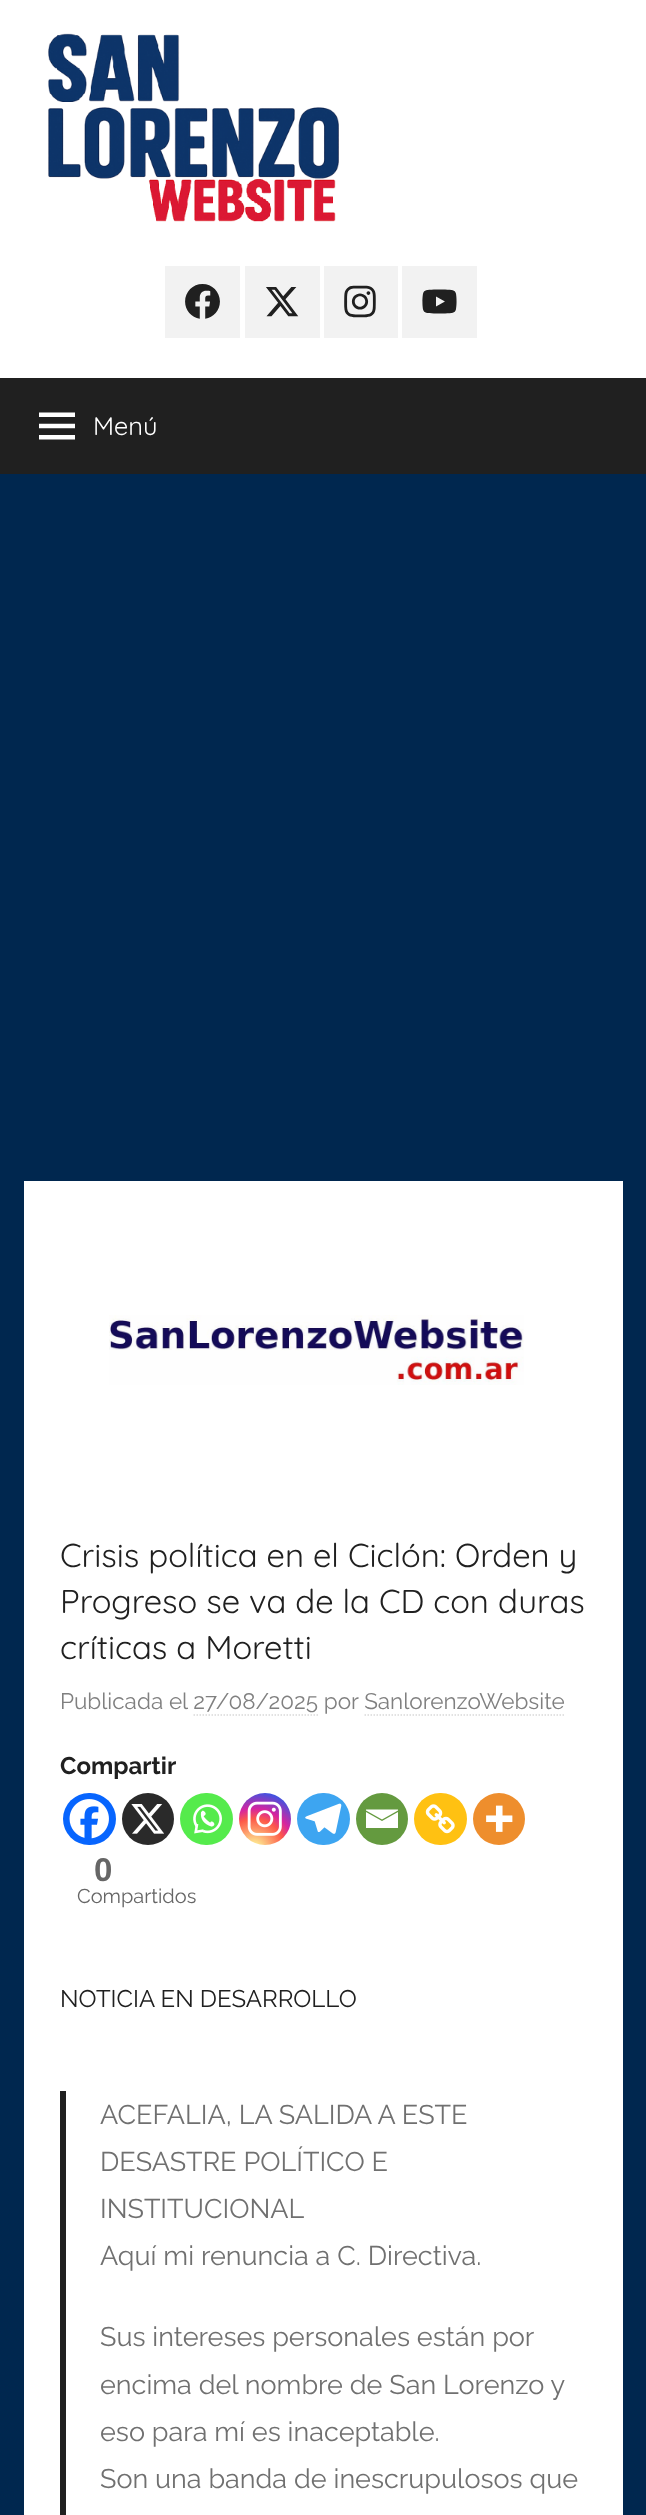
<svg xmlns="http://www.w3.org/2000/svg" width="646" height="2515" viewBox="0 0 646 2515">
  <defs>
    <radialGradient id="g1" gradientUnits="userSpaceOnUse" cx="254" cy="1849" r="67"><stop offset="0" stop-color="#fdf497"/><stop offset="0.05" stop-color="#fdf497"/><stop offset="0.45" stop-color="#fd5949"/><stop offset="0.6" stop-color="#d6249f"/><stop offset="0.9" stop-color="#285aeb"/></radialGradient>
  </defs>
  <rect width="100%" height="100%" fill="#00274f"/>
  <path d="M0 0h646v378H0z" fill="#fff"/>
  <image x="48" y="33" width="291" height="189" href="img/1.png"/>
  <path d="M165 266h75v72H165z" fill="#f2f2f2"/>
  <image x="185" y="284" width="35" height="35" href="img/2.png"/>
  <path d="M245 266h75v72H245z" fill="#f2f2f2"/>
  <image x="266" y="287" width="33" height="30" href="img/3.png"/>
  <path d="M324 266h74v72H324z" fill="#f2f2f2"/>
  <image x="344" y="285" width="32" height="33" href="img/4.png"/>
  <path d="M402 266h75v72H402z" fill="#f2f2f2"/>
  <image x="422" y="289" width="35" height="25" href="img/5.png"/>
  <path d="M0 378h646v96H0z" fill="#202020"/>
  <image x="39" y="412" width="36" height="28" href="img/6.png"/>
  <path d="M24 1181h599v1334H24z" fill="#fff"/>
  <image x="109" y="1315" width="415" height="70" href="img/7.png"/>
  <path d="M193.5 1715H318" fill="none" stroke="#d9d9d9" stroke-width="1.5" stroke-dasharray="1.5 1.5"/>
  <path d="M364.5 1715H565.5" fill="none" stroke="#d9d9d9" stroke-width="1.5" stroke-dasharray="1.5 1.5"/>
  <rect x="63" y="1793" width="53" height="52" rx="26" fill="#0765fe"/>
  <image x="69" y="1799" width="40" height="40" href="img/8.png"/>
  <circle cx="148" cy="1819" r="26" fill="#2a2a2a"/>
  <image x="131" y="1804" width="33" height="30" href="img/9.png"/>
  <rect x="180" y="1793" width="53" height="52" rx="26" fill="#55eb4c"/>
  <image x="193" y="1804" width="29" height="30" href="img/10.png"/>
  <circle cx="265" cy="1819" r="26" fill="url(#g1)"/>
  <image x="247" y="1801" width="35" height="35" href="img/11.png"/>
  <rect x="297" y="1793" width="53" height="52" rx="26" fill="#3da5f1"/>
  <image x="305" y="1803" width="37" height="31" href="img/12.png"/>
  <circle cx="382" cy="1819" r="26" fill="#649a3f"/>
  <path d="M364.5 1809.5H398V1810.5L382 1819.5L366 1810.5V1809.5M366 1812L382 1821L398 1812V1828H366V1812" fill="#fff"/>
  <rect x="414" y="1793" width="53" height="52" rx="26" fill="#ffc112"/>
  <image x="425" y="1804" width="30" height="30" href="img/13.png"/>
  <circle cx="499" cy="1819" r="26" fill="#ee8e2d"/>
  <image x="486" y="1805" width="27" height="27" href="img/14.png"/>
  <path d="M60 2091h6v424H60z" fill="#202020"/>
  <text x="93" y="435" font-family="Quicksand" font-size="25.5" font-weight="300" fill="#fff">Menú</text>
  <g font-family="Quicksand" font-size="33" font-weight="300" fill="#202020">
    <text x="60" y="1567">Crisis política en el Ciclón: Orden y</text>
    <text x="60" y="1613">Progreso se va de la CD con duras</text>
    <text x="60" y="1659">críticas a Moretti</text>
  </g>
  <text x="60" y="1709" font-family="Raleway" font-size="22.5" font-weight="100" fill="#808080">Publicada el 27/08/2025 por SanlorenzoWebsite</text>
  <text x="60" y="1774" font-family="'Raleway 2'" font-size="24" font-weight="100" fill="#202020">Compartir</text>
  <text x="94" y="1881" font-family="Liberation Sans" font-size="33" font-weight="bold" fill="#666">0</text>
  <text x="77" y="1903" font-family="Raleway" font-size="20" font-weight="100" fill="#666">Compartidos</text>
  <text x="60" y="2007" font-family="Raleway" font-size="24" font-weight="100" fill="#202020">NOTICIA EN DESARROLLO</text>
  <g font-family="Raleway" font-size="27" font-weight="100" fill="#707070">
    <text x="100" y="2124">ACEFALIA, LA SALIDA A ESTE</text>
    <text x="100" y="2171">DESASTRE POLÍTICO E</text>
    <text x="100" y="2218">INSTITUCIONAL</text>
    <text x="100" y="2265">Aquí mi renuncia a C. Directiva.</text>
    <text x="100" y="2346">Sus intereses personales están por</text>
    <text x="100" y="2394">encima del nombre de San Lorenzo y</text>
    <text x="100" y="2441">eso para mí es inaceptable.</text>
    <text x="100" y="2488">Son una banda de inescrupulosos que</text>
  </g>
</svg>
